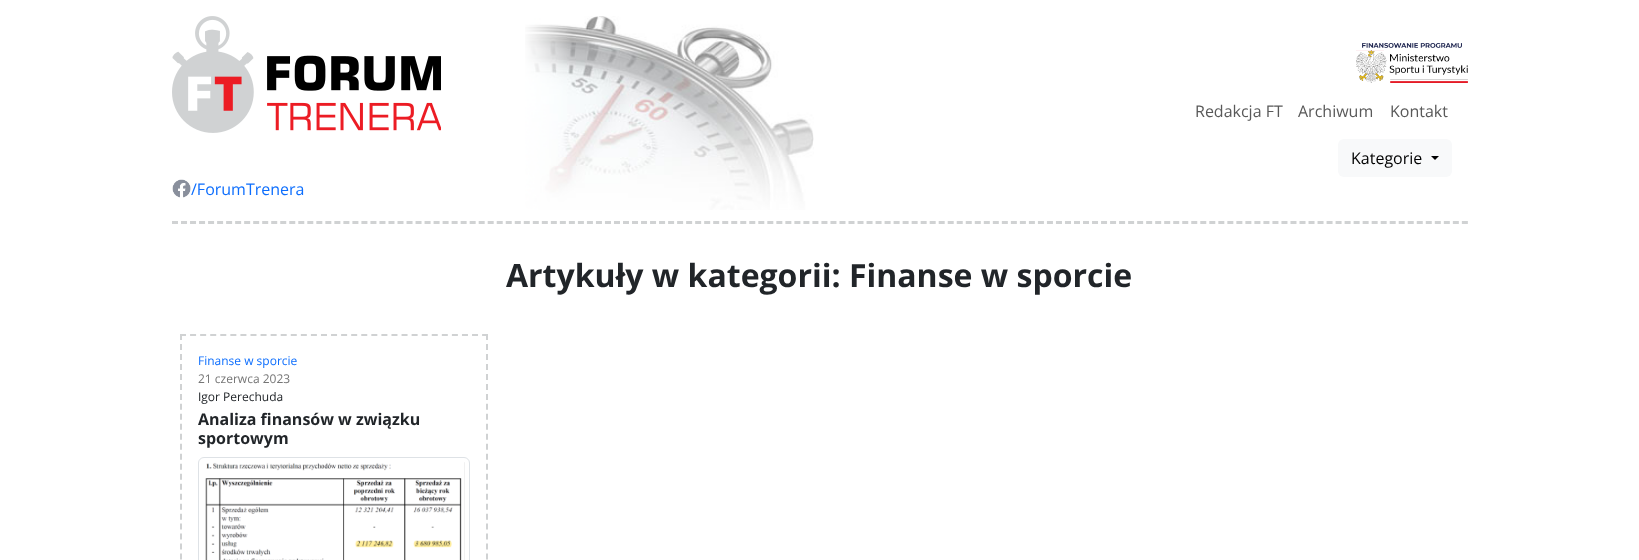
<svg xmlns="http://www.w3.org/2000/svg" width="1639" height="560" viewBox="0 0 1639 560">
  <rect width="100%" height="100%" fill="#fff"/>
  <image x="525" y="16" width="289" height="194" href="img/1.png"/>
  <path d="M172 222.5H1468" fill="none" stroke="#d0d2d3" stroke-width="3" stroke-dasharray="6 3.02"/>
  <image x="1356" y="43" width="112" height="40" href="img/2.png"/>
  <rect x="1338" y="139" width="114" height="38" rx="6" fill="#f8f9fa"/>
  <path d="M1431 156H1439L1435 160Z" fill="#000"/>
  <image x="172" y="16" width="269" height="117" href="img/3.png"/>
  <image x="172" y="179" width="19" height="19" href="img/4.png"/>
  <path d="M180 335H488" fill="none" stroke="#d0d2d3" stroke-width="2" stroke-dasharray="6 4.07"/>
  <path d="M487 334V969" fill="none" stroke="#d0d2d3" stroke-width="2" stroke-dasharray="6 3.98"/>
  <path d="M181 334V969" fill="none" stroke="#d0d2d3" stroke-width="2" stroke-dasharray="6 3.98"/>
  <rect x="198.5" y="457.5" width="271" height="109" rx="5.5" fill="none" stroke="#dee2e6"/>
  <image x="205" y="462" width="260" height="98" href="img/5.png"/>
  <g font-family="Open Sans" font-size="16" fill="#595959">
    <text x="1195" y="117">Redakcja FT</text>
    <text x="1298" y="117">Archiwum</text>
    <text x="1390" y="117">Kontakt</text>
  </g>
  <text x="1351" y="164" font-family="Open Sans" font-size="16" fill="#000">Kategorie</text>
  <text x="191" y="195" font-family="Open Sans" font-size="16" fill="#0d6efd">/ForumTrenera</text>
  <text x="506" y="287" font-family="Open Sans" font-size="32" font-weight="bold" fill="#212529">Artykuły w kategorii: Finanse w sporcie</text>
  <text x="198" y="365" font-family="Open Sans" font-size="12" fill="#0d6efd">Finanse w sporcie</text>
  <text x="198" y="383" font-family="Open Sans" font-size="12" fill="#757575">21 czerwca 2023</text>
  <text x="198" y="401" font-family="Open Sans" font-size="12" fill="#212529">Igor Perechuda</text>
  <g font-family="Open Sans" font-size="16" font-weight="bold" fill="#212529">
    <text x="198" y="425">Analiza finansów w związku</text>
    <text x="198" y="444">sportowym</text>
  </g>
</svg>
